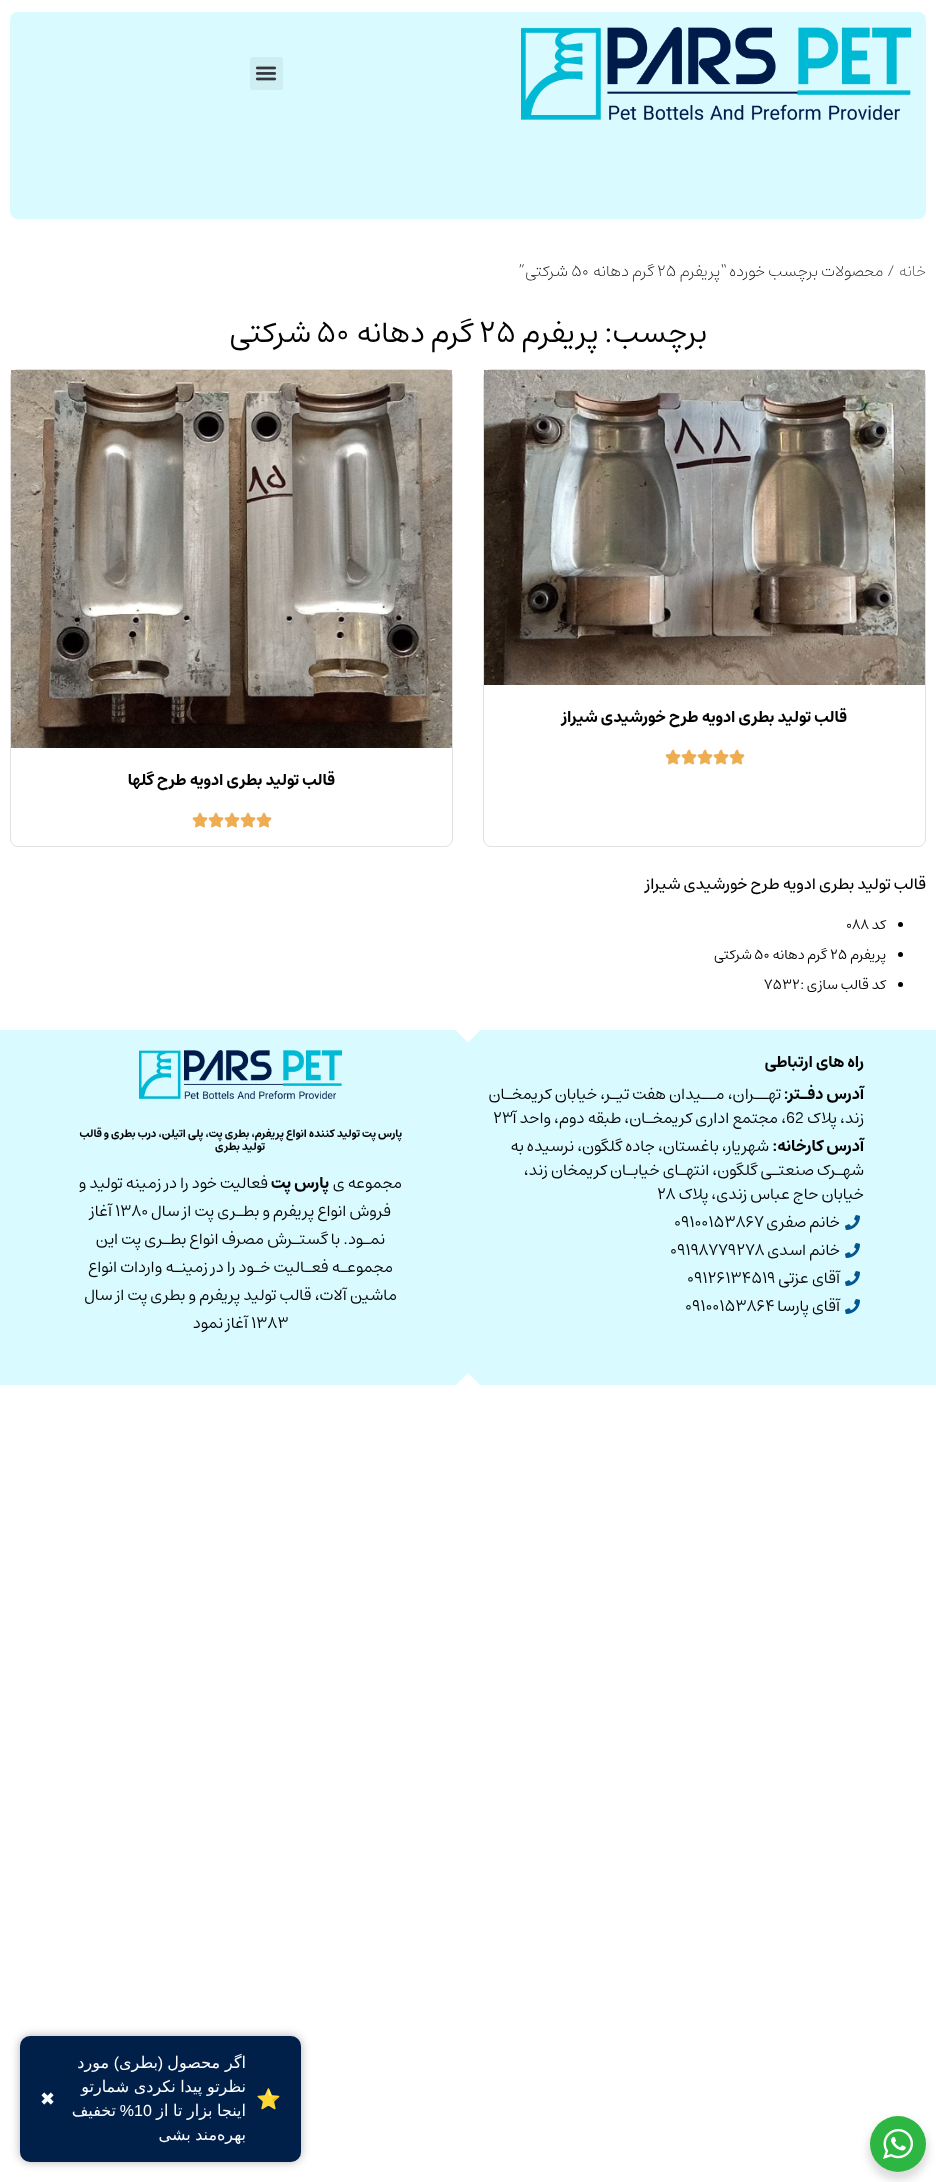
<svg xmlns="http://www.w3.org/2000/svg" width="936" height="2182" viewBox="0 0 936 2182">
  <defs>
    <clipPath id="clip1"><path d="M0 1373h936v13H0z"/></clipPath>
  </defs>
  <rect width="100%" height="100%" fill="#fff"/>
  <rect x="10" y="12" width="916" height="207" rx="8" fill="#d9faff"/>
  <image x="521" y="27" width="390" height="93" href="img/1.png"/>
  <rect x="250" y="57" width="33" height="33" rx="3" fill="#ceeef2"/>
  <image x="255" y="66" width="22" height="15" href="img/2.png"/>
  <rect x="483.5" y="369.5" width="442" height="477" rx="7.5" fill="none" stroke="#e1e1e1"/>
  <image x="484" y="370" width="441" height="315" href="img/3.png"/>
  <image x="729" y="749" width="16" height="16" href="img/4.png"/>
  <image x="729" y="749" width="16" height="16" href="img/5.png"/>
  <image x="713" y="749" width="16" height="16" href="img/4.png"/>
  <image x="713" y="749" width="16" height="16" href="img/5.png"/>
  <image x="697" y="749" width="16" height="16" href="img/4.png"/>
  <image x="697" y="749" width="16" height="16" href="img/5.png"/>
  <image x="681" y="749" width="16" height="16" href="img/4.png"/>
  <image x="681" y="749" width="16" height="16" href="img/5.png"/>
  <image x="665" y="749" width="16" height="16" href="img/4.png"/>
  <image x="665" y="749" width="16" height="16" href="img/5.png"/>
  <rect x="10.5" y="369.5" width="442" height="477" rx="7.5" fill="none" stroke="#e1e1e1"/>
  <image x="11" y="370" width="441" height="378" href="img/6.png"/>
  <image x="256" y="812" width="16" height="16" href="img/4.png"/>
  <image x="256" y="812" width="16" height="16" href="img/5.png"/>
  <image x="240" y="812" width="16" height="16" href="img/4.png"/>
  <image x="240" y="812" width="16" height="16" href="img/5.png"/>
  <image x="224" y="812" width="16" height="16" href="img/4.png"/>
  <image x="224" y="812" width="16" height="16" href="img/5.png"/>
  <image x="208" y="812" width="16" height="16" href="img/4.png"/>
  <image x="208" y="812" width="16" height="16" href="img/5.png"/>
  <image x="192" y="812" width="16" height="16" href="img/4.png"/>
  <image x="192" y="812" width="16" height="16" href="img/5.png"/>
  <circle cx="900.5" cy="924.5" r="2.5" fill="#000"/>
  <circle cx="900.5" cy="954.5" r="2.5" fill="#000"/>
  <circle cx="900.5" cy="984.5" r="2.5" fill="#000"/>
  <path d="M0 1030h936v355H0z" fill="#d9faff"/>
  <path d="M468 1042.5L454.5 1029H481.5Z" fill="#fff"/>
  <image x="845" y="1215" width="15" height="15" href="img/7.png"/>
  <image x="845" y="1243" width="15" height="15" href="img/7.png"/>
  <image x="845" y="1271" width="15" height="15" href="img/7.png"/>
  <image x="845" y="1299" width="15" height="15" href="img/7.png"/>
  <image x="139" y="1050" width="203" height="49" href="img/8.png"/>
  <g clip-path="url(#clip1)">
    <path d="M468 1373L481.5 1386.5H454.5Z" fill="#fff"/>
  </g>
  <rect x="868" y="2120" width="60" height="60" rx="30" fill="#00000024" filter="blur(4px)"/>
  <circle cx="898" cy="2144" r="28" fill="#2db742"/>
  <image x="883" y="2129" width="30" height="30" href="img/9.png"/>
  <rect x="20" y="2036" width="281" height="126" rx="10" fill="#0000004d" filter="blur(5px)"/>
  <rect x="20" y="2036" width="281" height="126" rx="10" fill="#00204a"/>
  <text x="926" y="276" font-family="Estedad" font-size="16" font-weight="200" direction="rtl" fill="#474747">خانه</text>
  <g font-family="Estedad" font-size="16" font-weight="200" direction="rtl" fill="#000">
    <text x="895" y="276">/ محصولات برچسب خورده</text>
    <text x="727" y="276">“پریفرم</text>
  </g>
  <text x="657" y="276" font-family="Estedad" font-size="16" font-weight="200" fill="#000">۲۵</text>
  <text x="654" y="276" font-family="Estedad" font-size="16" font-weight="200" direction="rtl" fill="#000">گرم دهانه</text>
  <text x="571" y="276" font-family="Estedad" font-size="16" font-weight="200" fill="#000">۵۰</text>
  <text x="568" y="276" font-family="Estedad" font-size="16" font-weight="200" direction="rtl" fill="#000">شرکتی”</text>
  <text x="707" y="342" font-family="Estedad" font-size="30" direction="rtl" fill="#000">برچسب: پریفرم</text>
  <text x="479" y="342" font-family="Estedad" font-size="30" fill="#000">۲۵</text>
  <text x="473" y="342" font-family="Estedad" font-size="30" direction="rtl" fill="#000">گرم دهانه</text>
  <text x="316" y="342" font-family="Estedad" font-size="30" fill="#000">۵۰</text>
  <text x="311" y="342" font-family="Estedad" font-size="30" direction="rtl" fill="#000">شرکتی</text>
  <g font-family="Estedad" font-size="16" font-weight="bold" direction="rtl" fill="#000">
    <text x="847" y="722">قالب تولید بطری ادویه طرح خورشیدی شیراز</text>
    <text x="335" y="785">قالب تولید بطری ادویه طرح گلها</text>
  </g>
  <text x="926" y="889" font-family="Estedad" font-size="16" font-weight="500" direction="rtl" fill="#000">قالب تولید بطری ادویه طرح خورشیدی شیراز</text>
  <text x="886" y="929" font-family="Estedad" font-size="14" direction="rtl" fill="#000">کد</text>
  <text x="846" y="929" font-family="Estedad" font-size="14" fill="#000">۰۸۸</text>
  <text x="886" y="959" font-family="Estedad" font-size="14" direction="rtl" fill="#000">پریفرم</text>
  <text x="830" y="959" font-family="Estedad" font-size="14" fill="#000">۲۵</text>
  <text x="827" y="959" font-family="Estedad" font-size="14" direction="rtl" fill="#000">گرم دهانه</text>
  <text x="754" y="959" font-family="Estedad" font-size="14" fill="#000">۵۰</text>
  <g font-family="Estedad" font-size="14" direction="rtl" fill="#000">
    <text x="752" y="959">شرکتی</text>
    <text x="886" y="989">کد قالب سازی :</text>
  </g>
  <text x="764" y="989" font-family="Estedad" font-size="14" fill="#000">۷۵۳۲</text>
  <g font-family="Estedad" font-size="16" font-weight="bold" direction="rtl" fill="#000">
    <text x="864" y="1067">راه های ارتباطی</text>
    <text x="864" y="1099">آدرس دفـتر:</text>
  </g>
  <g font-family="Estedad" font-size="16" direction="rtl" fill="#000">
    <text x="781" y="1099">تهــران، مــیدان هفت تیـر، خیابان کریمخـان</text>
    <text x="864" y="1123">زند، پلاک</text>
  </g>
  <text x="786" y="1123" font-family="Estedad" font-size="16" fill="#000">62</text>
  <text x="786" y="1123" font-family="Estedad" font-size="16" direction="rtl" fill="#000">، مجتمع اداری کریمخـان، طبقه دوم، واحد آ</text>
  <text x="493" y="1123" font-family="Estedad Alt" font-size="16" fill="#000">23</text>
  <text x="864" y="1151" font-family="Estedad" font-size="16" font-weight="bold" direction="rtl" fill="#000">آدرس کارخانه:</text>
  <g font-family="Estedad" font-size="16" direction="rtl" fill="#000">
    <text x="769" y="1151">شهریار، باغستان، جاده گلگون، نرسیده به</text>
    <text x="864" y="1175">شهـرک صنعتـی گلگون، انتهـای خیابـان کریمخان زند،</text>
    <text x="864" y="1199">خیابان حاج عباس زندی، پلاک</text>
  </g>
  <text x="657" y="1199" font-family="Estedad Alt" font-size="16" fill="#000">28</text>
  <text x="840" y="1227" font-family="Estedad" font-size="16" direction="rtl" fill="#000">خانم صفری</text>
  <text x="674" y="1227" font-family="Estedad Alt" font-size="16" fill="#000">09100153867</text>
  <text x="840" y="1255" font-family="Estedad" font-size="16" direction="rtl" fill="#000">خانم اسدی</text>
  <text x="670" y="1255" font-family="Estedad Alt" font-size="16" fill="#000">09198779278</text>
  <text x="840" y="1283" font-family="Estedad" font-size="16" direction="rtl" fill="#000">آقای عزتی</text>
  <text x="687" y="1283" font-family="Estedad Alt" font-size="16" fill="#000">09126134519</text>
  <text x="840" y="1311" font-family="Estedad" font-size="16" direction="rtl" fill="#000">آقای پارسا</text>
  <text x="685" y="1311" font-family="Estedad Alt" font-size="16" fill="#000">09100153864</text>
  <g font-family="Estedad" font-size="11" font-weight="bold" direction="rtl" fill="#000">
    <text x="402" y="1137">پارس پت تولید کننده انواع پریفرم، بطری پت، پلی اتیلن، درب بطری و</text>
    <text x="102" y="1137">قالب</text>
    <text x="265" y="1150">تولید بطری</text>
  </g>
  <text x="402" y="1188" font-family="Estedad" font-size="16" direction="rtl" fill="#000">مجموعه ی</text>
  <text x="329" y="1188" font-family="Estedad" font-size="16" font-weight="bold" direction="rtl" fill="#000">پارس پت</text>
  <g font-family="Estedad" font-size="16" direction="rtl" fill="#000">
    <text x="268" y="1188">فعالیت خود را در زمینه تولید و</text>
    <text x="391" y="1216">فروش انواع پریفرم و بطـری پت از سال</text>
  </g>
  <text x="115" y="1216" font-family="Estedad" font-size="16" fill="#000">۱۳۸۰</text>
  <g font-family="Estedad" font-size="16" direction="rtl" fill="#000">
    <text x="112" y="1216">آغاز</text>
    <text x="385" y="1244">نمـود. با گستـرش مصرف انواع بطـری پت این</text>
    <text x="393" y="1272">مجموعـه فعـالیت خـود را در زمینـه واردات انواع</text>
    <text x="397" y="1300">ماشین آلات، قالب تولید پریفرم و بطری پت از سال</text>
  </g>
  <text x="251" y="1328" font-family="Estedad" font-size="16" fill="#000">۱۳۸۳</text>
  <text x="248" y="1328" font-family="Estedad" font-size="16" direction="rtl" fill="#000">آغاز نمود</text>
  <text x="256" y="2106" font-family="Noto Color Emoji" font-size="20" fill="#fff">⭐</text>
  <text x="246" y="2068" font-family="DejaVu Sans" font-size="16" direction="rtl" fill="#fff">اگر محصول</text>
  <text x="163" y="2068" font-family="Liberation Sans" font-size="16" direction="rtl" fill="#fff">(</text>
  <text x="158" y="2068" font-family="DejaVu Sans" font-size="16" direction="rtl" fill="#fff">بطری</text>
  <text x="119" y="2068" font-family="Liberation Sans" font-size="16" direction="rtl" fill="#fff">)</text>
  <g font-family="DejaVu Sans" font-size="16" direction="rtl" fill="#fff">
    <text x="109" y="2068">مورد</text>
    <text x="246" y="2092" word-spacing="-0.5">نظرتو پیدا نکردی شمارتو</text>
    <text x="246" y="2116" word-spacing="-0.5">اینجا بزار تا از</text>
  </g>
  <text x="134" y="2116" font-family="Liberation Sans" font-size="16" fill="#fff">10</text>
  <text x="134" y="2116" font-family="Liberation Sans" font-size="16" direction="rtl" fill="#fff">%</text>
  <g font-family="DejaVu Sans" font-size="16" direction="rtl" fill="#fff">
    <text x="116" y="2116">تخفیف</text>
    <text x="246" y="2140">بهره</text>
    <text x="217" y="2140" word-spacing="-0.5">مند بشی</text>
  </g>
  <text x="40" y="2105" font-family="DejaVu Sans" font-size="18" fill="#fff">✖</text>
</svg>
